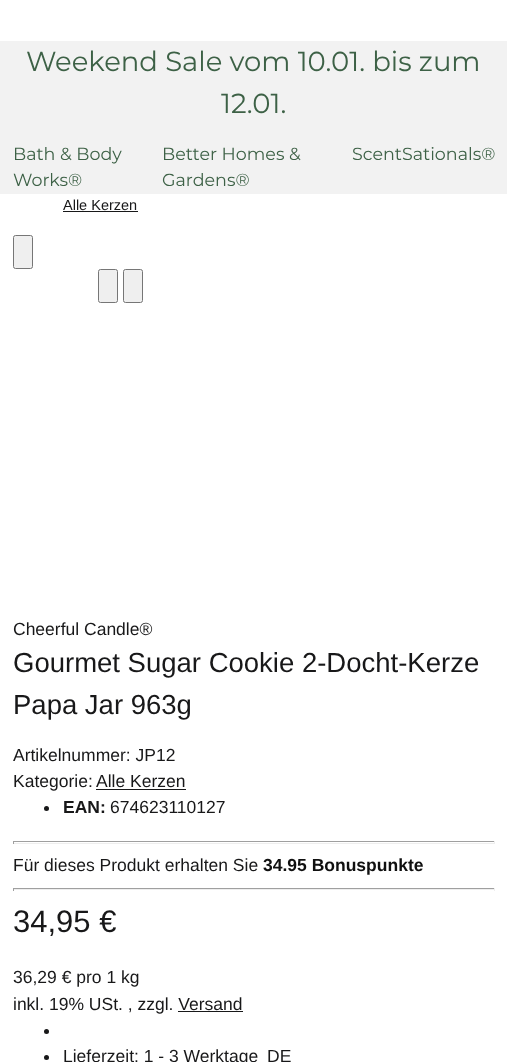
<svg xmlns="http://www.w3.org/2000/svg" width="507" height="1062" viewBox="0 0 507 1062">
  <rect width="100%" height="100%" fill="#fff"/>
  <path d="M0 41h507v153H0z" fill="#f2f2f2"/>
  <path d="M63 211h75v1H63z" fill="#181819"/>
  <rect x="13.5" y="235.5" width="19" height="33" rx="2" fill="#efefef" stroke="#767676"/>
  <rect x="98.5" y="269.5" width="19" height="33" rx="2" fill="#efefef" stroke="#767676"/>
  <rect x="123.5" y="269.5" width="19" height="33" rx="2" fill="#efefef" stroke="#767676"/>
  <path d="M96 789h90v1H96z" fill="#181819"/>
  <circle cx="46.5" cy="808.5" r="2.5" fill="#181819"/>
  <path d="M13 841h482v1H13z" fill="#9f9f9f"/>
  <path d="M494 841h1v3H494z" fill="#eee"/>
  <path d="M13 843h482v1H13z" fill="#eee"/>
  <path d="M13 841h1v3H13z" fill="#9f9f9f"/>
  <path d="M13 888h482v1H13z" fill="#9f9f9f"/>
  <path d="M494 888h1v3H494z" fill="#eee"/>
  <path d="M13 889h482v1H13z" fill="#eee"/>
  <path d="M13 888h1v3H13z" fill="#9f9f9f"/>
  <path d="M178 1011h65v1H178z" fill="#181819"/>
  <circle cx="46.5" cy="1031.5" r="2.5" fill="#181819"/>
  <circle cx="46.5" cy="1057.5" r="2.5" fill="#181819"/>
  <g font-family="Montserrat" font-size="27.5" fill="#3d6146">
    <text x="26" y="71">Weekend Sale vom 10.01. bis zum</text>
    <text x="221" y="113">12.01.</text>
  </g>
  <g font-family="Montserrat" font-size="17.5" fill="#3d6146">
    <text x="13" y="160">Bath &amp; Body</text>
    <text x="13" y="186">Works®</text>
    <text x="162" y="160">Better Homes &amp;</text>
    <text x="162" y="186">Gardens®</text>
    <text x="352" y="160">ScentSationals®</text>
  </g>
  <text x="63" y="210" font-family="Liberation Sans" font-size="14.5" fill="#181819">Alle Kerzen</text>
  <text x="13" y="635" font-family="Liberation Sans" font-size="17.5" fill="#181819">Cheerful Candle®</text>
  <g font-family="Liberation Sans" font-size="27.5" fill="#181819">
    <text x="13" y="672">Gourmet Sugar Cookie 2-Docht-Kerze</text>
    <text x="13" y="714">Papa Jar 963g</text>
  </g>
  <g font-family="Liberation Sans" font-size="17.5" fill="#181819">
    <text x="13" y="761">Artikelnummer: JP12</text>
    <text x="13" y="787">Kategorie:</text>
    <text x="96" y="787">Alle Kerzen</text>
  </g>
  <text x="63" y="813" font-family="Liberation Sans" font-size="17.5" font-weight="bold" fill="#181819">EAN:</text>
  <g font-family="Liberation Sans" font-size="17.5" fill="#181819">
    <text x="110" y="813">674623110127</text>
    <text x="13" y="871">Für dieses Produkt erhalten Sie</text>
  </g>
  <text x="263" y="871" font-family="Liberation Sans" font-size="17.5" font-weight="bold" fill="#101010">34.95 Bonuspunkte</text>
  <text x="13" y="932" font-family="Liberation Sans" font-size="31" fill="#181819">34,95 €</text>
  <g font-family="Liberation Sans" font-size="17.5" fill="#181819">
    <text x="13" y="983">36,29 € pro 1 kg</text>
    <text x="13" y="1010">inkl. 19% USt. , zzgl. Versand</text>
    <text x="63" y="1062">Lieferzeit: 1 - 3 Werktage</text>
    <text x="267" y="1062">DE</text>
  </g>
</svg>
